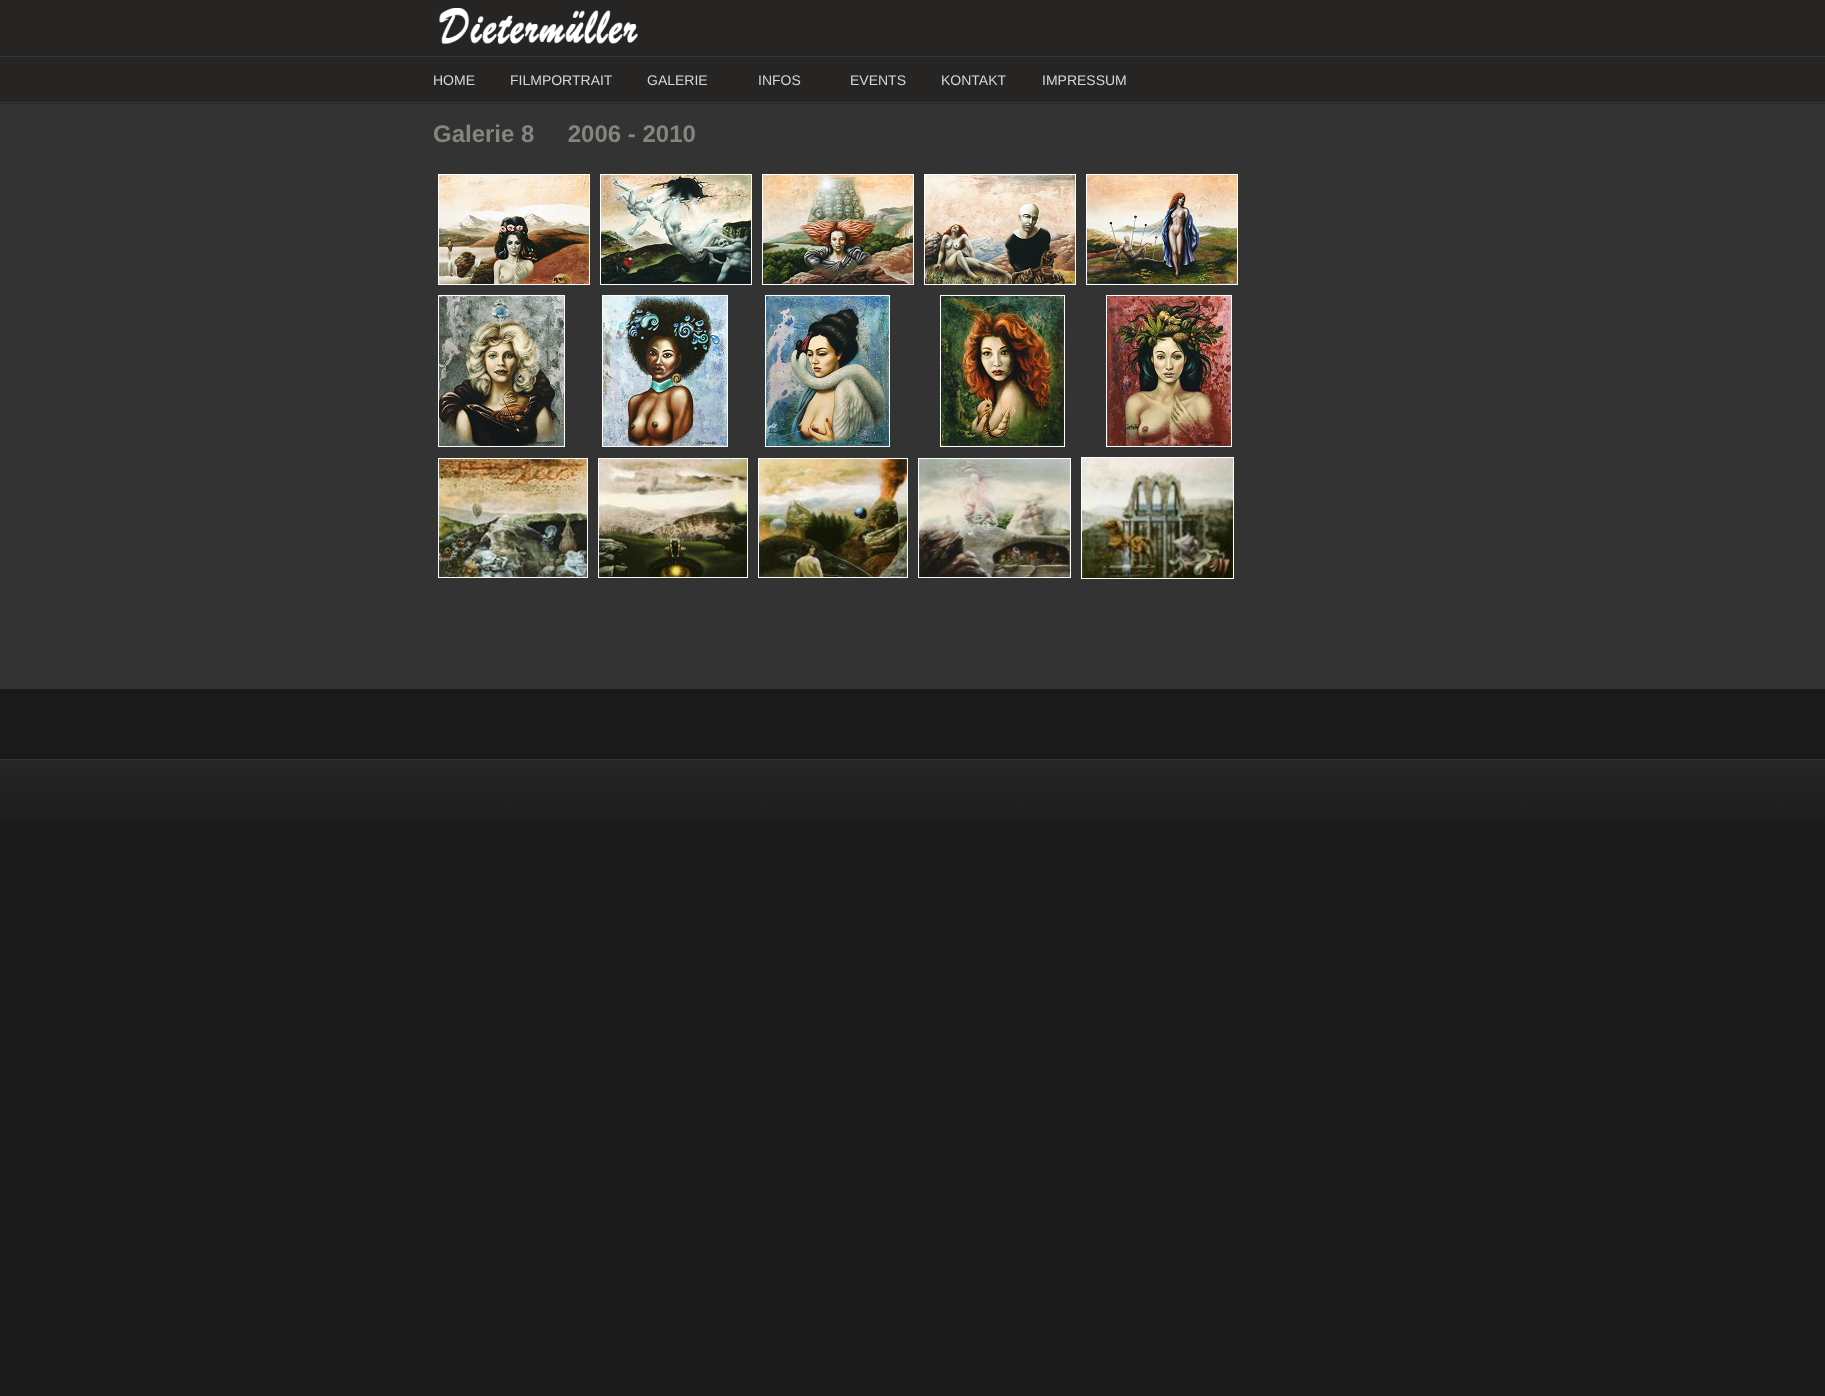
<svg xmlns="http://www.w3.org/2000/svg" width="1825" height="1396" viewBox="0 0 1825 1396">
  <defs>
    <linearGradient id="g1" gradientUnits="userSpaceOnUse" x1="913" y1="760" x2="913" y2="840"><stop offset="0" stop-color="#262626"/><stop offset="1" stop-color="#1a1a1a"/></linearGradient>
  </defs>
  <rect width="100%" height="100%" fill="#1a1a1a"/>
  <path d="M0 0h1825v56H0z" fill="#272424"/>
  <image x="439" y="8" width="199" height="36" href="img/1.png"/>
  <path d="M0 57h1825v45H0z" fill="#272424"/>
  <path d="M0 56h1825v1H0z" fill="#353535"/>
  <path d="M0 102h1825v1H0z" fill="#353535"/>
  <path d="M0 103h1825v1H0z" fill="#272424"/>
  <path d="M0 104h1825v585H0z" fill="#333"/>
  <image x="438" y="174" width="152" height="111" href="img/2.png"/>
  <image x="600" y="174" width="152" height="111" href="img/3.png"/>
  <image x="762" y="174" width="152" height="111" href="img/4.png"/>
  <image x="924" y="174" width="152" height="111" href="img/5.png"/>
  <image x="1086" y="174" width="152" height="111" href="img/6.png"/>
  <image x="438" y="295" width="127" height="152" href="img/7.png"/>
  <image x="602" y="295" width="126" height="152" href="img/8.png"/>
  <image x="765" y="295" width="125" height="152" href="img/9.png"/>
  <image x="940" y="295" width="125" height="152" href="img/10.png"/>
  <image x="1106" y="295" width="126" height="152" href="img/11.png"/>
  <image x="438" y="458" width="150" height="120" href="img/12.png"/>
  <image x="598" y="458" width="150" height="120" href="img/13.png"/>
  <image x="758" y="458" width="150" height="120" href="img/14.png"/>
  <image x="918" y="458" width="153" height="120" href="img/15.png"/>
  <image x="1081" y="457" width="153" height="122" href="img/16.png"/>
  <path d="M0 760h1825v63H0z" fill="url(#g1)"/>
  <path d="M0 759h1825v1H0z" fill="#353535"/>
  <g font-family="Liberation Sans" font-size="14" fill="#d8d8d8">
    <text x="433" y="85">HOME</text>
    <text x="510" y="85">FILMPORTRAIT</text>
    <text x="647" y="85">GALERIE</text>
    <text x="758" y="85">INFOS</text>
    <text x="850" y="85">EVENTS</text>
    <text x="941" y="85">KONTAKT</text>
    <text x="1042" y="85">IMPRESSUM</text>
  </g>
  <text x="433" y="142" font-family="Liberation Sans" font-size="24" font-weight="bold" fill="#84867d" xml:space="preserve">Galerie 8     2006 - 2010</text>
</svg>
